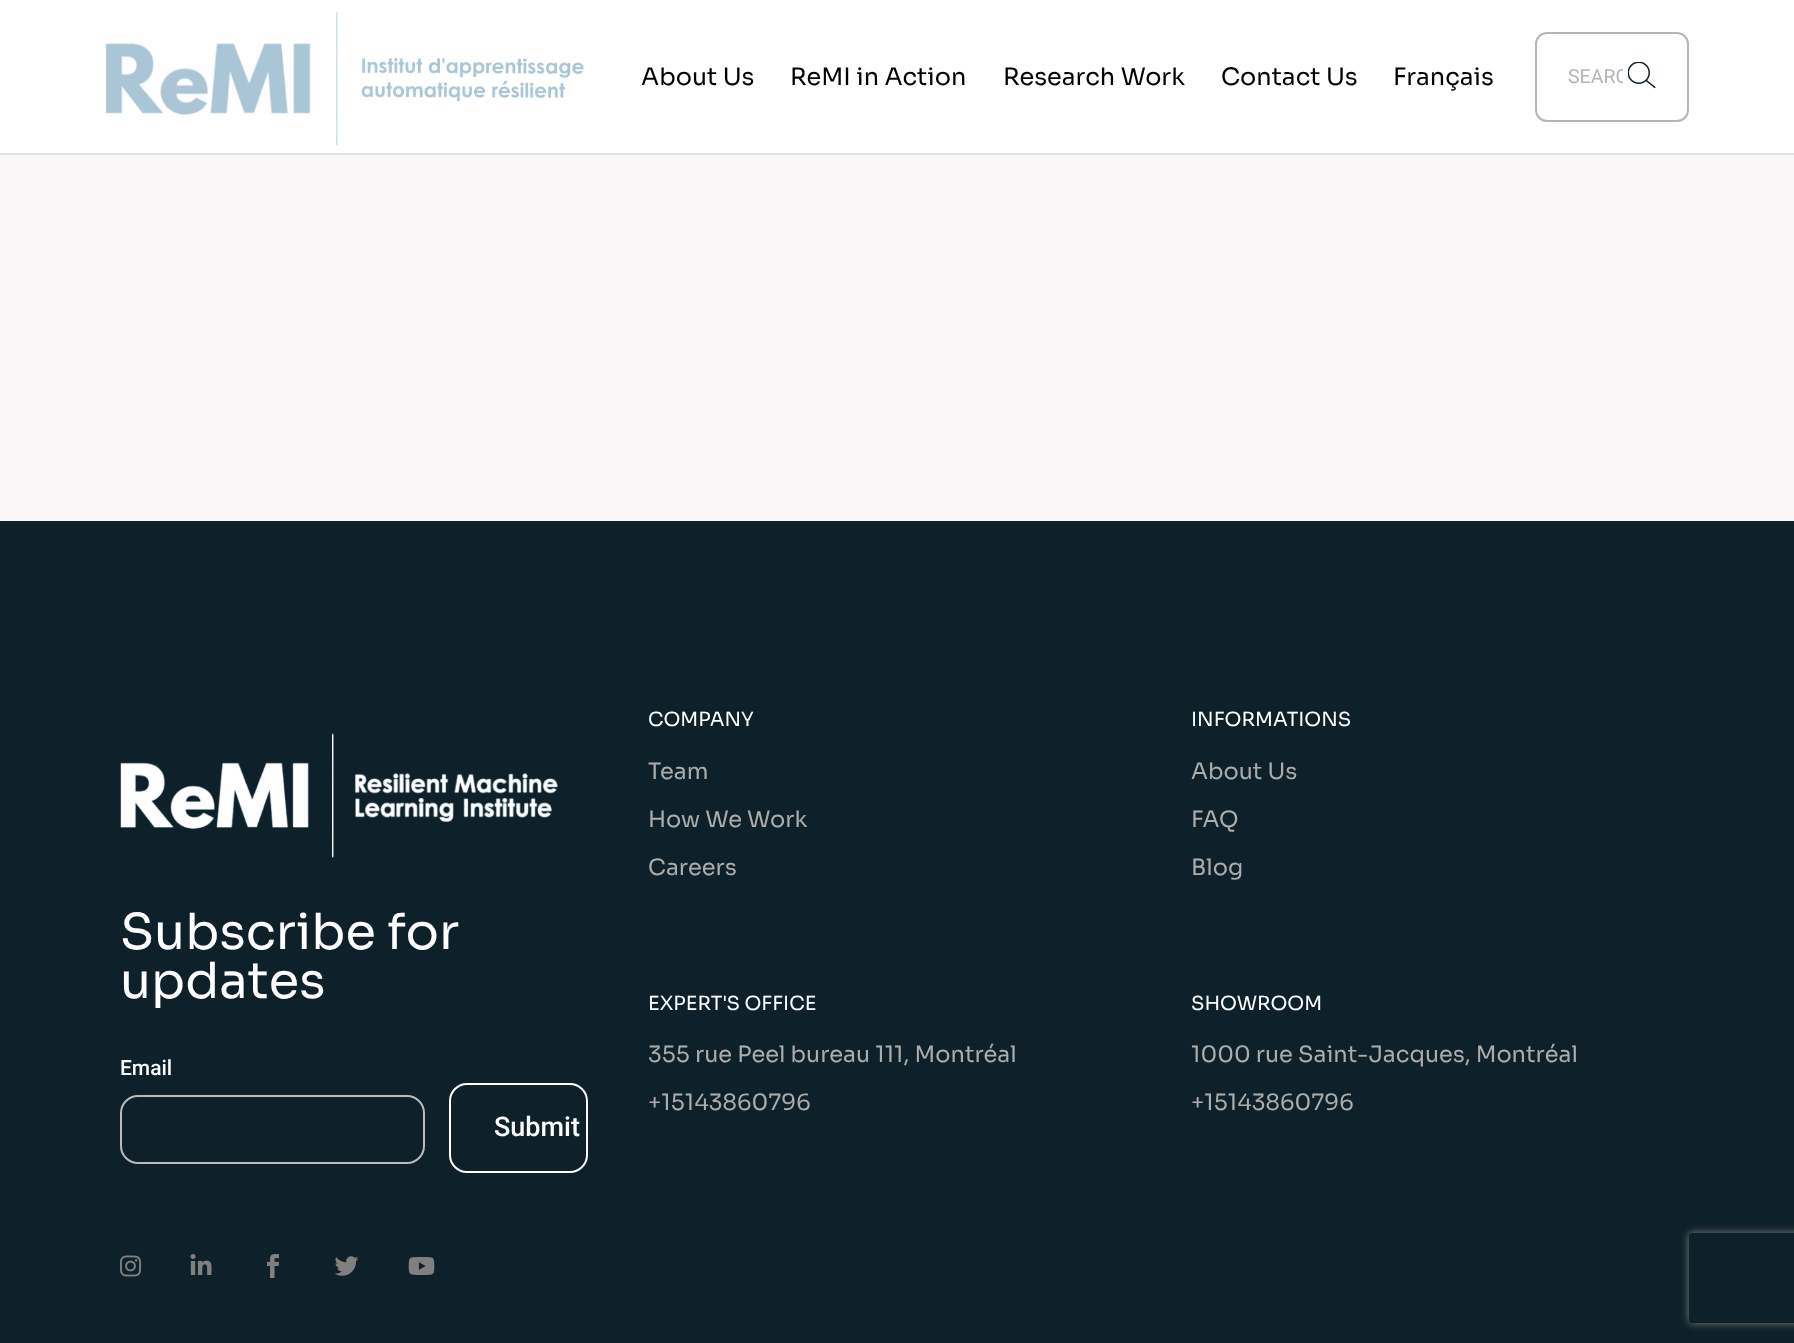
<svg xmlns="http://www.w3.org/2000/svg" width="1794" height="1343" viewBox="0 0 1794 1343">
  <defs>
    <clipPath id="clip1"><path d="M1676 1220H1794V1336H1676ZM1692 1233H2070C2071.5 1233 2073 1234.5 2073 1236V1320C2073 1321.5 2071.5 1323 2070 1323H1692C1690.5 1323 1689 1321.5 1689 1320V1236C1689 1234.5 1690.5 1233 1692 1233Z" clip-rule="evenodd"/></clipPath>
    <clipPath id="clip2"><path d="M1568 66h55v23H1568z"/></clipPath>
  </defs>
  <rect width="100%" height="100%" fill="#faf7f8"/>
  <path d="M0 0h1794v153H0z" fill="#fff"/>
  <path d="M0 153h1794v2H0z" fill="#e1e1e1"/>
  <image x="105" y="11" width="479" height="135" href="img/1.png"/>
  <rect x="1536" y="33" width="152" height="88" rx="11" fill="none" stroke="#b1b6b8" stroke-width="2"/>
  <image x="1628" y="62" width="28" height="27" href="img/2.png"/>
  <path d="M0 521h1794v822H0z" fill="#0e202a"/>
  <image x="120" y="733" width="438" height="125" href="img/3.png"/>
  <rect x="121" y="1096" width="303" height="67" rx="17" fill="none" stroke="#bbb" stroke-width="2"/>
  <rect x="450" y="1084" width="137" height="88" rx="17" fill="none" stroke="#fff" stroke-width="2"/>
  <image x="120" y="1255" width="22" height="22" href="img/4.png"/>
  <image x="190" y="1254" width="22" height="21" href="img/5.png"/>
  <image x="267" y="1254" width="12" height="24" href="img/6.png"/>
  <image x="334" y="1256" width="25" height="20" href="img/7.png"/>
  <image x="408" y="1257" width="27" height="18" href="img/8.png"/>
  <g clip-path="url(#clip1)">
    <rect x="1689" y="1233" width="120" height="90" rx="3" fill="#808080" filter="blur(4px)"/>
  </g>
  <g font-family="Sora" font-size="24" fill="#000">
    <text x="641" y="85">About Us</text>
    <text x="790" y="85">ReMI in Action</text>
    <text x="1003" y="85">Research Work</text>
    <text x="1221" y="85">Contact Us</text>
    <text x="1393" y="85">Français</text>
  </g>
  <g clip-path="url(#clip2)">
    <text x="1568" y="83" font-family="Roboto" font-size="19.5" fill="#b1b6b8">SEARC</text>
  </g>
  <g font-family="Sora" font-size="49.5" fill="#fff">
    <text x="120" y="949">Subscribe for</text>
    <text x="120" y="998">updates</text>
  </g>
  <text x="120" y="1075" font-family="Roboto" font-size="21" font-weight="500" fill="#fff">Email</text>
  <text x="494" y="1136" font-family="Roboto" font-size="27" font-weight="500" fill="#fff">Submit</text>
  <text x="648" y="726" font-family="Sora" font-size="19.5" fill="#fff">COMPANY</text>
  <g font-family="Sora" font-size="22.5" fill="#acacac">
    <text x="648" y="779">Team</text>
    <text x="648" y="827">How We Work</text>
    <text x="648" y="875">Careers</text>
  </g>
  <text x="648" y="1010" font-family="Sora" font-size="19.5" fill="#fff">EXPERT'S OFFICE</text>
  <g font-family="Sora" font-size="22.5" fill="#acacac">
    <text x="648" y="1062">355 rue Peel bureau 111, Montréal</text>
    <text x="648" y="1110">+15143860796</text>
  </g>
  <text x="1191" y="726" font-family="Sora" font-size="19.5" fill="#fff">INFORMATIONS</text>
  <g font-family="Sora" font-size="22.5" fill="#acacac">
    <text x="1191" y="779">About Us</text>
    <text x="1191" y="827">FAQ</text>
    <text x="1191" y="875">Blog</text>
  </g>
  <text x="1191" y="1010" font-family="Sora" font-size="19.5" fill="#fff">SHOWROOM</text>
  <g font-family="Sora" font-size="22.5" fill="#acacac">
    <text x="1191" y="1062">1000 rue Saint-Jacques, Montréal</text>
    <text x="1191" y="1110">+15143860796</text>
  </g>
</svg>
